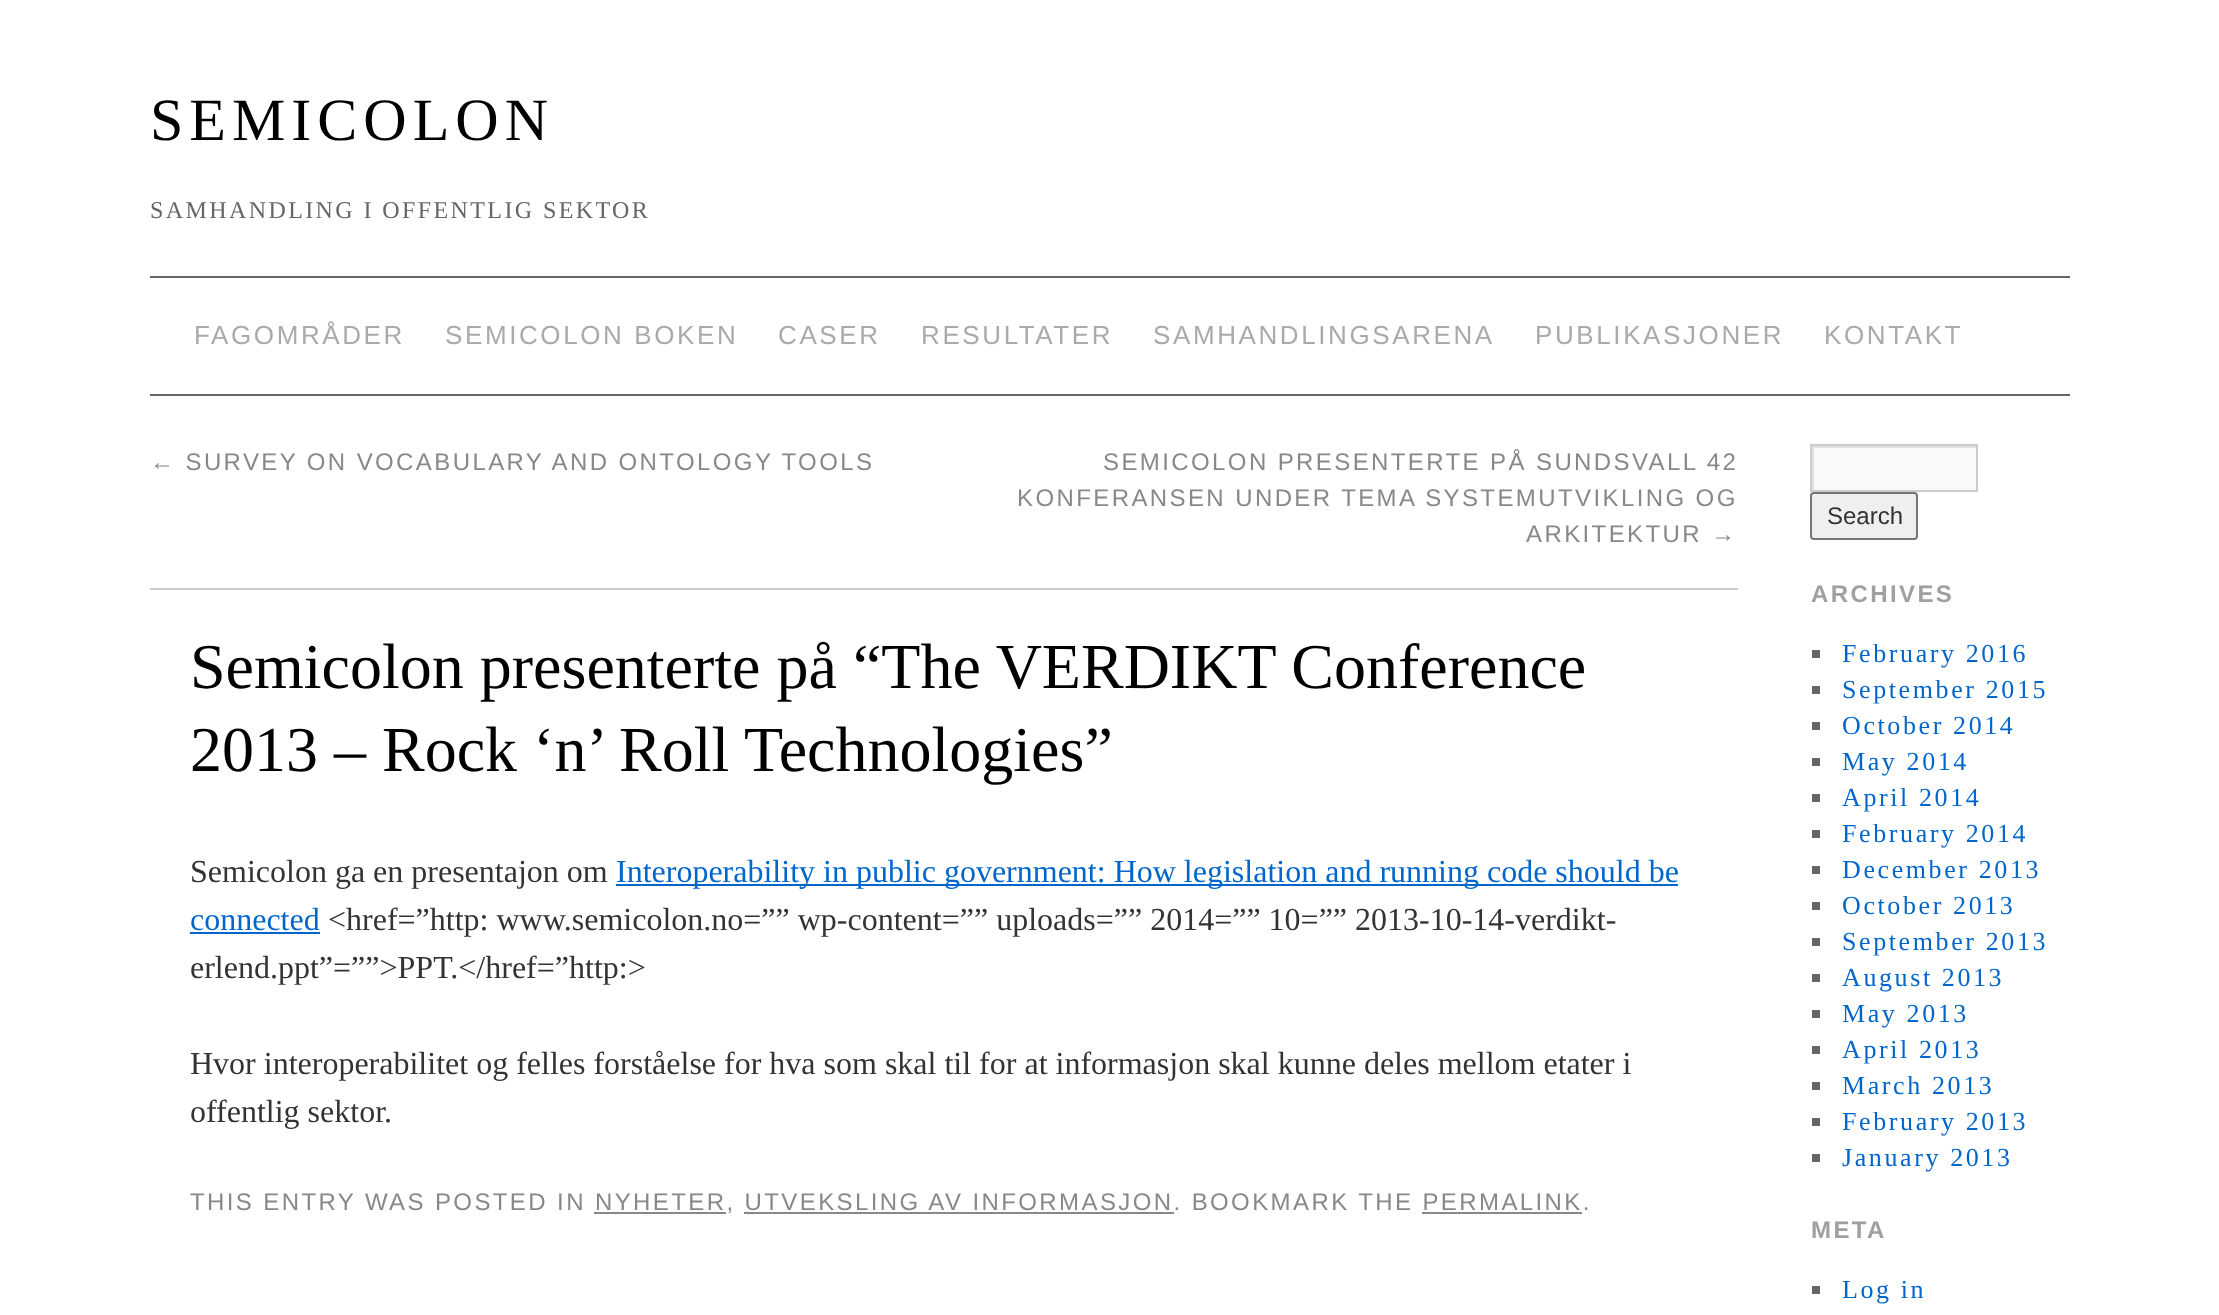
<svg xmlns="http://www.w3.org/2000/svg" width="2219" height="1315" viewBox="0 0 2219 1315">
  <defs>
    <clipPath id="clip1"><path d="M1812 446h164v44H1812z"/></clipPath>
  </defs>
  <rect width="100%" height="100%" fill="#fff"/>
  <path d="M150 276h1920v2H150z" fill="#666"/>
  <path d="M150 394h1920v2H150z" fill="#666"/>
  <path d="M150 588h1588v2H150z" fill="#ccc"/>
  <path d="M616 884h1062v2H616z" fill="#06c"/>
  <path d="M190 932h130v2H190z" fill="#06c"/>
  <path d="M594 1212h132v2H594z" fill="#888"/>
  <path d="M744 1212h430v2H744z" fill="#888"/>
  <path d="M1422 1212h160v2H1422z" fill="#888"/>
  <path d="M1814 448h162v42H1814z" fill="#f9f9f9"/>
  <g clip-path="url(#clip1)">
    <path d="M1614 248H2174V688H1614ZM1814 448H1978V492H1814Z" fill="#e0e0e0" fill-rule="evenodd"/>
  </g>
  <path d="M1811 445h166v46H1811z" fill="none" stroke="#ccc" stroke-width="2"/>
  <rect x="1811" y="493" width="106" height="46" rx="3" fill="#efefef" stroke="#767676" stroke-width="2"/>
  <path d="M1812 650h8v8H1812z" fill="#666"/>
  <path d="M1812 686h8v8H1812z" fill="#666"/>
  <path d="M1812 722h8v8H1812z" fill="#666"/>
  <path d="M1812 758h8v8H1812z" fill="#666"/>
  <path d="M1812 794h8v8H1812z" fill="#666"/>
  <path d="M1812 830h8v8H1812z" fill="#666"/>
  <path d="M1812 866h8v8H1812z" fill="#666"/>
  <path d="M1812 902h8v8H1812z" fill="#666"/>
  <path d="M1812 938h8v8H1812z" fill="#666"/>
  <path d="M1812 974h8v8H1812z" fill="#666"/>
  <path d="M1812 1010h8v8H1812z" fill="#666"/>
  <path d="M1812 1046h8v8H1812z" fill="#666"/>
  <path d="M1812 1082h8v8H1812z" fill="#666"/>
  <path d="M1812 1118h8v8H1812z" fill="#666"/>
  <path d="M1812 1154h8v8H1812z" fill="#666"/>
  <path d="M1812 1286h8v8H1812z" fill="#666"/>
  <text x="150" y="140" font-family="Liberation Serif" font-size="60" letter-spacing="6" fill="#000">SEMICOLON</text>
  <text x="150" y="218" font-family="Liberation Serif" font-size="24" letter-spacing="2.4" fill="#666">SAMHANDLING I OFFENTLIG SEKTOR</text>
  <g font-family="Liberation Sans" font-size="26" letter-spacing="2.6" fill="#aaa">
    <text x="194" y="344">FAGOMRÅDER</text>
    <text x="445" y="344">SEMICOLON BOKEN</text>
    <text x="778" y="344">CASER</text>
    <text x="921" y="344">RESULTATER</text>
    <text x="1153" y="344">SAMHANDLINGSARENA</text>
    <text x="1535" y="344">PUBLIKASJONER</text>
    <text x="1824" y="344">KONTAKT</text>
  </g>
  <g font-family="Liberation Sans" font-size="24" letter-spacing="2.4" fill="#888">
    <text x="150" y="470">← SURVEY ON VOCABULARY AND ONTOLOGY TOOLS</text>
    <text x="1103" y="470">SEMICOLON PRESENTERTE PÅ SUNDSVALL 42</text>
    <text x="1017" y="506">KONFERANSEN UNDER TEMA SYSTEMUTVIKLING OG</text>
    <text x="1526" y="542">ARKITEKTUR →</text>
  </g>
  <g font-family="Liberation Serif" font-size="64" fill="#000">
    <text x="190" y="688">Semicolon presenterte på “The VERDIKT Conference</text>
    <text x="190" y="771">2013 – Rock ‘n’ Roll Technologies”</text>
  </g>
  <text x="190" y="882" font-family="Liberation Serif" font-size="32" fill="#333">Semicolon ga en presentajon om</text>
  <g font-family="Liberation Serif" font-size="32" fill="#06c">
    <text x="616" y="882">Interoperability in public government: How legislation and running code should be</text>
    <text x="190" y="930">connected</text>
  </g>
  <g font-family="Liberation Serif" font-size="32" fill="#333">
    <text x="328" y="930">&lt;href=”http: www.semicolon.no=”” wp-content=”” uploads=”” 2014=”” 10=”” 2013-10-14-verdikt-</text>
    <text x="190" y="978">erlend.ppt”=””&gt;PPT.&lt;/href=”http:&gt;</text>
    <text x="190" y="1074">Hvor interoperabilitet og felles forståelse for hva som skal til for at informasjon skal kunne deles mellom etater i</text>
    <text x="190" y="1122">offentlig sektor.</text>
  </g>
  <text x="190" y="1210" font-family="Liberation Sans" font-size="24" letter-spacing="2.4" fill="#888">THIS ENTRY WAS POSTED IN NYHETER, UTVEKSLING AV INFORMASJON. BOOKMARK THE PERMALINK.</text>
  <text x="1827" y="524" font-family="Liberation Sans" font-size="24" fill="#333">Search</text>
  <text x="1811" y="602" font-family="Liberation Sans" font-size="24" font-weight="bold" letter-spacing="2.4" fill="#a0a0a0">ARCHIVES</text>
  <g font-family="Liberation Serif" font-size="26" letter-spacing="2.6" fill="#06c">
    <text x="1842" y="662">February 2016</text>
    <text x="1842" y="698">September 2015</text>
    <text x="1842" y="734">October 2014</text>
    <text x="1842" y="770">May 2014</text>
    <text x="1842" y="806">April 2014</text>
    <text x="1842" y="842">February 2014</text>
    <text x="1842" y="878">December 2013</text>
    <text x="1842" y="914">October 2013</text>
    <text x="1842" y="950">September 2013</text>
    <text x="1842" y="986">August 2013</text>
    <text x="1842" y="1022">May 2013</text>
    <text x="1842" y="1058">April 2013</text>
    <text x="1842" y="1094">March 2013</text>
    <text x="1842" y="1130">February 2013</text>
    <text x="1842" y="1166">January 2013</text>
  </g>
  <text x="1811" y="1238" font-family="Liberation Sans" font-size="24" font-weight="bold" letter-spacing="2.4" fill="#a0a0a0">META</text>
  <text x="1842" y="1298" font-family="Liberation Serif" font-size="26" letter-spacing="2.6" fill="#06c">Log in</text>
</svg>
